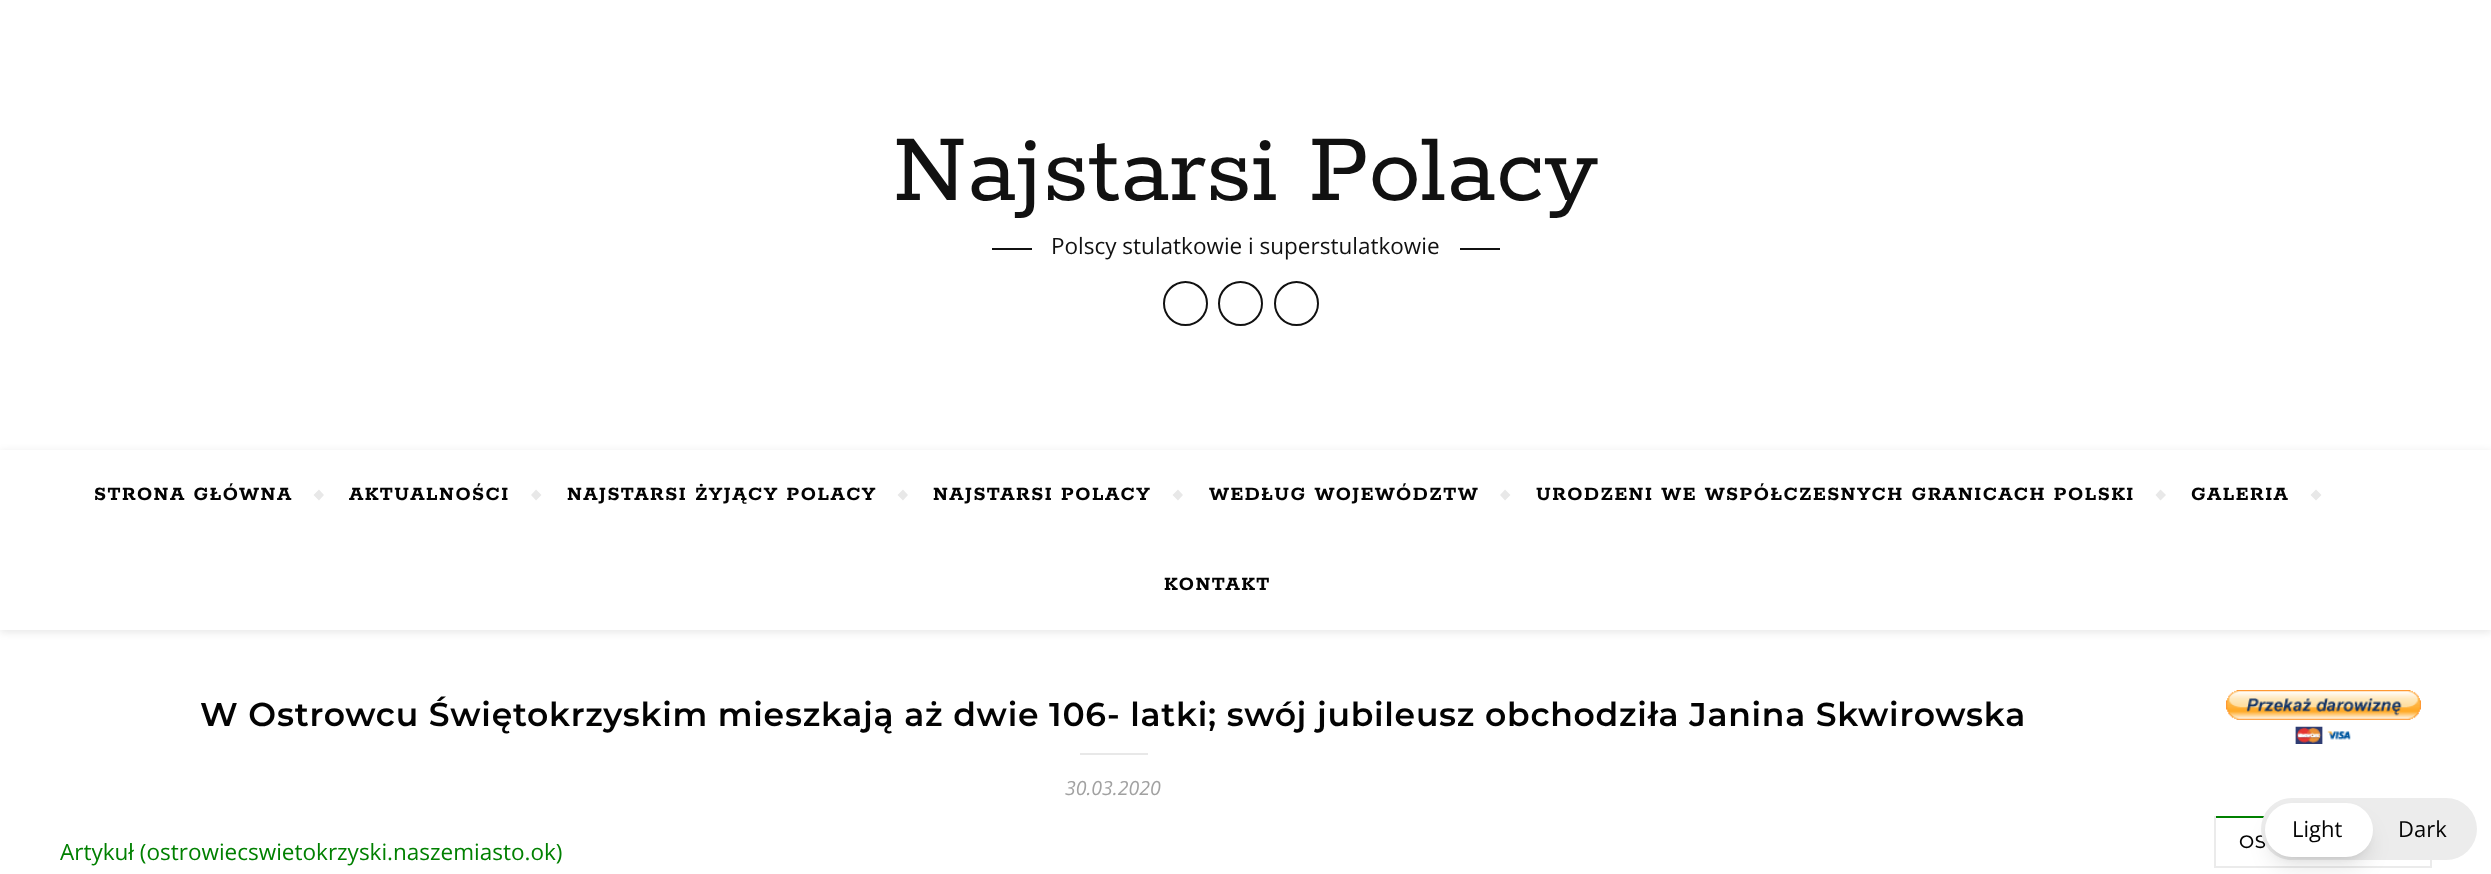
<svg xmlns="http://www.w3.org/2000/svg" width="2491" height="874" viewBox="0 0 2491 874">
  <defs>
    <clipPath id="clip1"><path d="M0 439H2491V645H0ZM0 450H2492V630H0Z" clip-rule="evenodd"/></clipPath>
  </defs>
  <rect width="100%" height="100%" fill="#fff"/>
  <path d="M992 248h40v2H992z" fill="#111"/>
  <path d="M1460 248h40v2H1460z" fill="#111"/>
  <circle cx="1185.5" cy="303.5" r="21.5" fill="none" stroke="#111" stroke-width="2"/>
  <circle cx="1240.5" cy="303.5" r="21.5" fill="none" stroke="#111" stroke-width="2"/>
  <circle cx="1296.5" cy="303.5" r="21.5" fill="none" stroke="#111" stroke-width="2"/>
  <g clip-path="url(#clip1)">
    <path d="M0 452h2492v180H0z" fill="#0000001a" filter="blur(4px)"/>
  </g>
  <path d="M313.5 495L319 489.5L324 495L319 500.5Z" fill="#e8e8e8"/>
  <path d="M531 495L536 489.5L541.5 495L536 500.5Z" fill="#e8e8e8"/>
  <path d="M897.5 495L903 489.5L908 495L903 500.5Z" fill="#e8e8e8"/>
  <path d="M1172.5 495L1178 489.5L1183 495L1178 500.5Z" fill="#e8e8e8"/>
  <path d="M1500 495L1505 489.5L1510.5 495L1505 500.5Z" fill="#e8e8e8"/>
  <path d="M2155.5 495L2160.5 489.5L2166 495L2160.5 500.5Z" fill="#e8e8e8"/>
  <path d="M2310.5 495L2316 489.5L2321.5 495L2316 500.5Z" fill="#e8e8e8"/>
  <path d="M1080 753h68v2H1080z" fill="#e8e8e8"/>
  <image x="2226" y="690" width="195" height="54" href="img/1.png"/>
  <path d="M2214 816h50v2H2214z" fill="#008000"/>
  <path d="M2430 860h2v7H2430z" fill="#ebebeb"/>
  <path d="M2214 866h218v2H2214z" fill="#ebebeb"/>
  <path d="M2214 816h2v51H2214z" fill="#ebebeb"/>
  <text x="893" y="200" font-family="Rokkitt" font-size="105" fill="#111">Najstarsi Polacy</text>
  <text x="1051" y="254" font-family="Open Sans" font-size="22.5" fill="#111">Polscy stulatkowie i superstulatkowie</text>
  <g font-family="Rokkitt" font-size="21" font-weight="bold" letter-spacing="1.5" fill="#030303">
    <text x="94" y="500">STRONA GŁÓWNA</text>
    <text x="349" y="500">AKTUALNOŚCI</text>
    <text x="567" y="500">NAJSTARSI ŻYJĄCY POLACY</text>
    <text x="933" y="500">NAJSTARSI POLACY</text>
    <text x="1209" y="500">WEDŁUG WOJEWÓDZTW</text>
    <text x="1536" y="500">URODZENI WE WSPÓŁCZESNYCH GRANICACH POLSKI</text>
    <text x="2191" y="500">GALERIA</text>
    <text x="1164" y="590">KONTAKT</text>
  </g>
  <text x="200" y="726" font-family="Montserrat" font-size="33" font-weight="600" letter-spacing="0.75" fill="#030303">W Ostrowcu Świętokrzyskim mieszkają aż dwie 106- latki; swój jubileusz obchodziła Janina Skwirowska</text>
  <text x="1065" y="795" font-family="Open Sans" font-size="19.5" font-style="italic" fill="#a1a1a1">30.03.2020</text>
  <text x="60" y="860" font-family="Open Sans" font-size="22.5" fill="#008000">Artykuł (ostrowiecswietokrzyski.naszemiasto.ok)</text>
  <text x="2239" y="848" font-family="Montserrat" font-size="18" font-weight="500" letter-spacing="0.75" fill="#030303">OS</text>
  <rect x="2261" y="798" width="216" height="62" rx="31" fill="#ececec"/>
  <rect x="2271" y="815" width="96" height="42" rx="21" fill="#0000001a" filter="blur(4.5px)"/>
  <rect x="2270" y="822" width="99" height="45" rx="22.5" fill="#0000001a" filter="blur(11px)"/>
  <rect x="2265" y="803" width="108" height="54" rx="27" fill="#fff"/>
  <g font-family="Open Sans" font-size="22" fill="#030303">
    <text x="2292" y="837">Light</text>
    <text x="2398" y="837">Dark</text>
  </g>
</svg>
